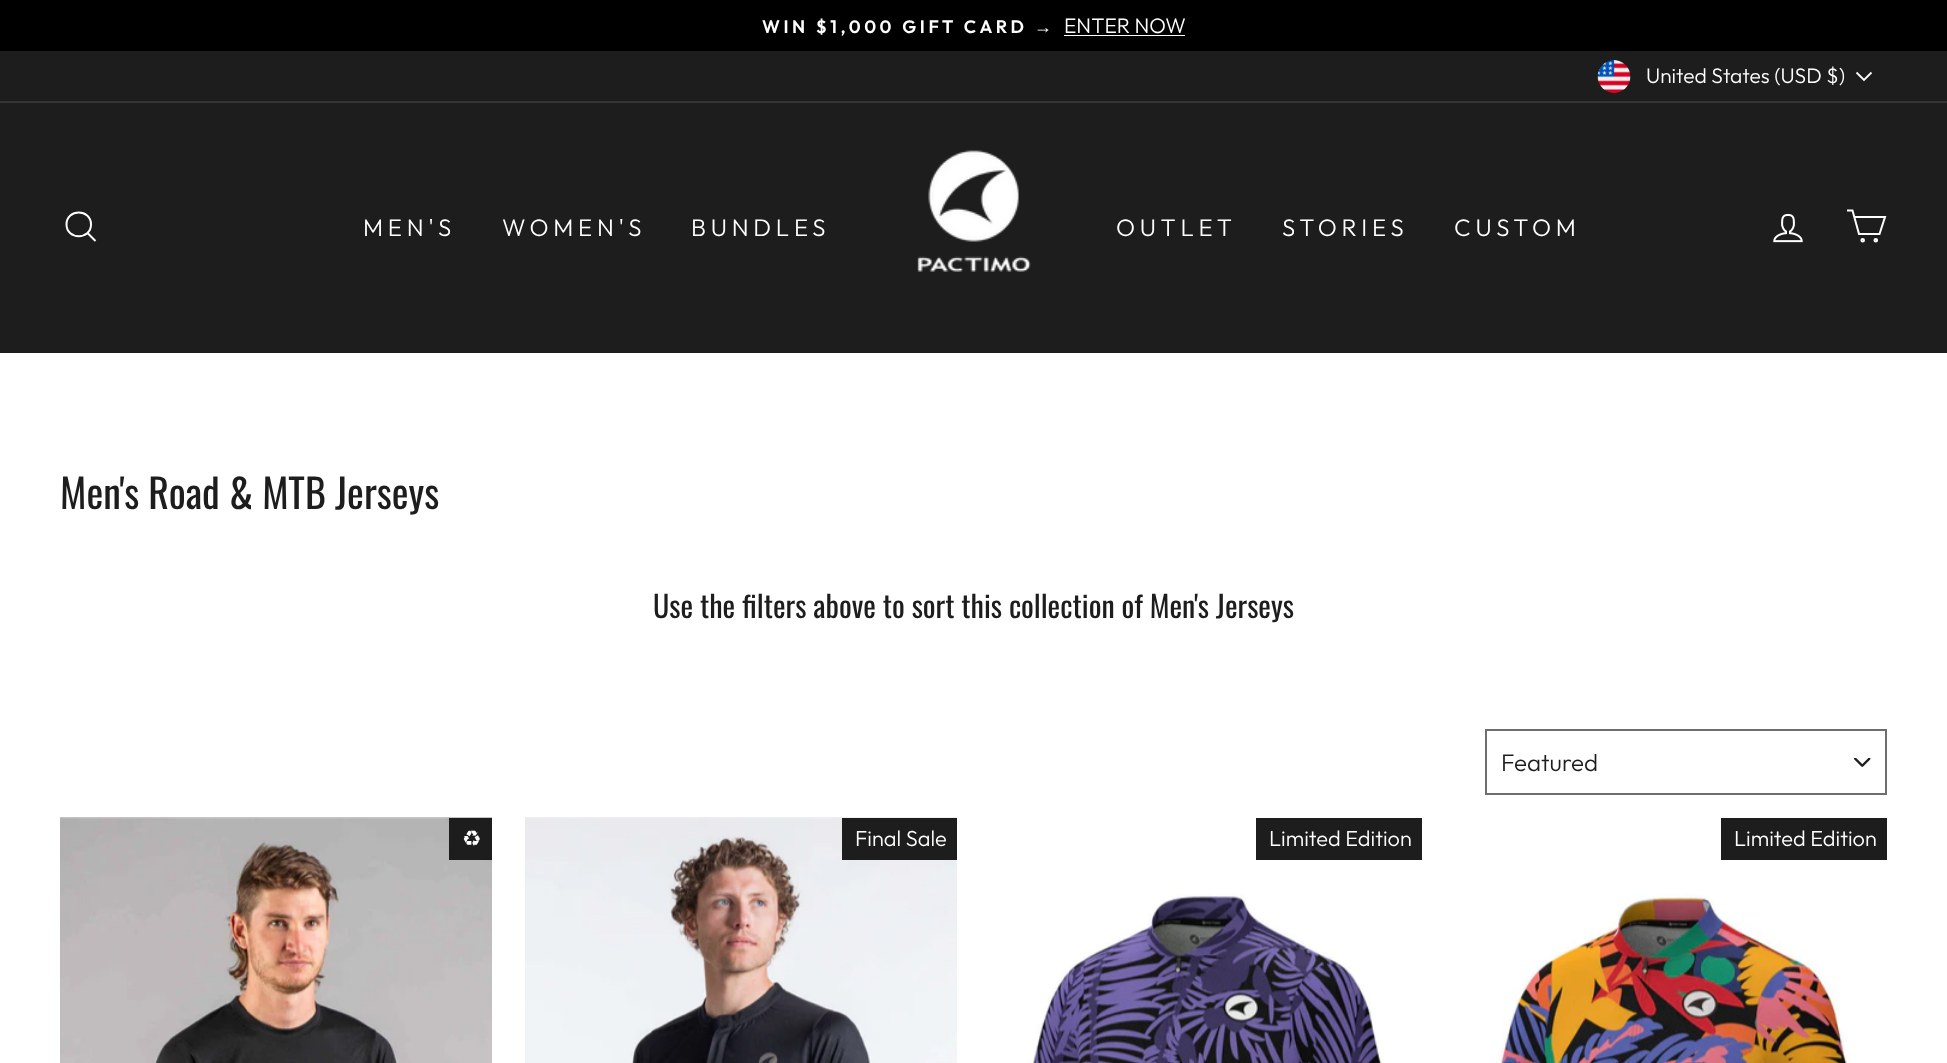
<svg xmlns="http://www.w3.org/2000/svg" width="1947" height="1063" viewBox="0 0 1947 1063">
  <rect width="100%" height="100%" fill="#fff"/>
  <path d="M0 0h1947v51H0z" fill="#000"/>
  <path d="M1064 35h121v1H1064z" fill="#fff"/>
  <path d="M0 51h1947v50H0z" fill="#1d1d1d"/>
  <image x="1597" y="60" width="34" height="33" href="img/1.png"/>
  <path d="M1856.5 72.5L1864 80L1871.5 72.5" fill="none" stroke="#fff" stroke-width="1.8"/>
  <path d="M0 103h1947v250H0z" fill="#1d1d1d"/>
  <path d="M0 101h1947v2H0z" fill="#343434"/>
  <path d="M91 224.5C91 240 66.5 240 66.5 224.5C66.5 208.5 91 208.5 91 224.5ZM95.5 241L87.5 233" fill="none" stroke="#fff" stroke-width="2"/>
  <image x="917" y="150" width="114" height="122" href="img/2.png"/>
  <image x="1773" y="213" width="30" height="30" href="img/3.png"/>
  <path d="M1854 217H1885L1879.5 234H1859L1852.5 210.5H1847" fill="none" stroke="#fff" stroke-width="2"/>
  <circle cx="1862.7" cy="240.3" r="1.3" fill="none" stroke="#fff" stroke-width="2"/>
  <circle cx="1875.8" cy="240.3" r="1.3" fill="none" stroke="#fff" stroke-width="2"/>
  <image x="1854" y="758" width="17" height="9" href="img/4.png"/>
  <path d="M1486 730h400v64H1486z" fill="none" stroke="#706d6d" stroke-width="2"/>
  <image x="60" y="817" width="432" height="246" href="img/5.png"/>
  <path d="M449 818h43v42H449z" fill="#1d1d1d"/>
  <image x="525" y="817" width="432" height="246" href="img/6.png"/>
  <path d="M842 818h115v42H842z" fill="#1d1d1d"/>
  <image x="990" y="818" width="432" height="245" href="img/7.png"/>
  <path d="M1256 818h166v42H1256z" fill="#1d1d1d"/>
  <image x="1455" y="818" width="432" height="245" href="img/8.png"/>
  <path d="M1721 818h166v42H1721z" fill="#1d1d1d"/>
  <text x="762" y="33" font-family="Outfit" font-size="18" font-weight="600" letter-spacing="3.6" fill="#fff">WIN $1,000 GIFT CARD</text>
  <text x="1034" y="33" font-family="Liberation Sans" font-size="18" font-weight="bold" letter-spacing="3.6" fill="#fff">→</text>
  <g font-family="Outfit" font-size="21" font-weight="300" fill="#fff">
    <text x="1064" y="33">ENTER NOW</text>
    <text x="1646" y="83">United States (USD $)</text>
  </g>
  <g font-family="Outfit" font-size="24" font-weight="300" letter-spacing="4.75" fill="#fff">
    <text x="363" y="236">MEN'S</text>
    <text x="502" y="236">WOMEN'S</text>
    <text x="691" y="236">BUNDLES</text>
    <text x="1116" y="236">OUTLET</text>
    <text x="1282" y="236">STORIES</text>
    <text x="1454" y="236">CUSTOM</text>
  </g>
  <text x="60" y="509" font-family="Oswald" font-size="40" fill="#1d1d1d">Men's Road &amp; MTB Jerseys</text>
  <text x="653" y="618" font-family="Oswald" font-size="30" fill="#1d1d1d">Use the filters above to sort this collection of Men's Jerseys</text>
  <text x="1501" y="771" font-family="Outfit" font-size="24" font-weight="300" fill="#1d1d1d">Featured</text>
  <text x="462" y="846" font-family="DejaVu Sans" font-size="21.75" fill="#fff">♻</text>
  <g font-family="Outfit" font-size="21.75" font-weight="300" fill="#fff">
    <text x="855" y="846">Final Sale</text>
    <text x="1269" y="846">Limited Edition</text>
    <text x="1734" y="846">Limited Edition</text>
  </g>
</svg>
